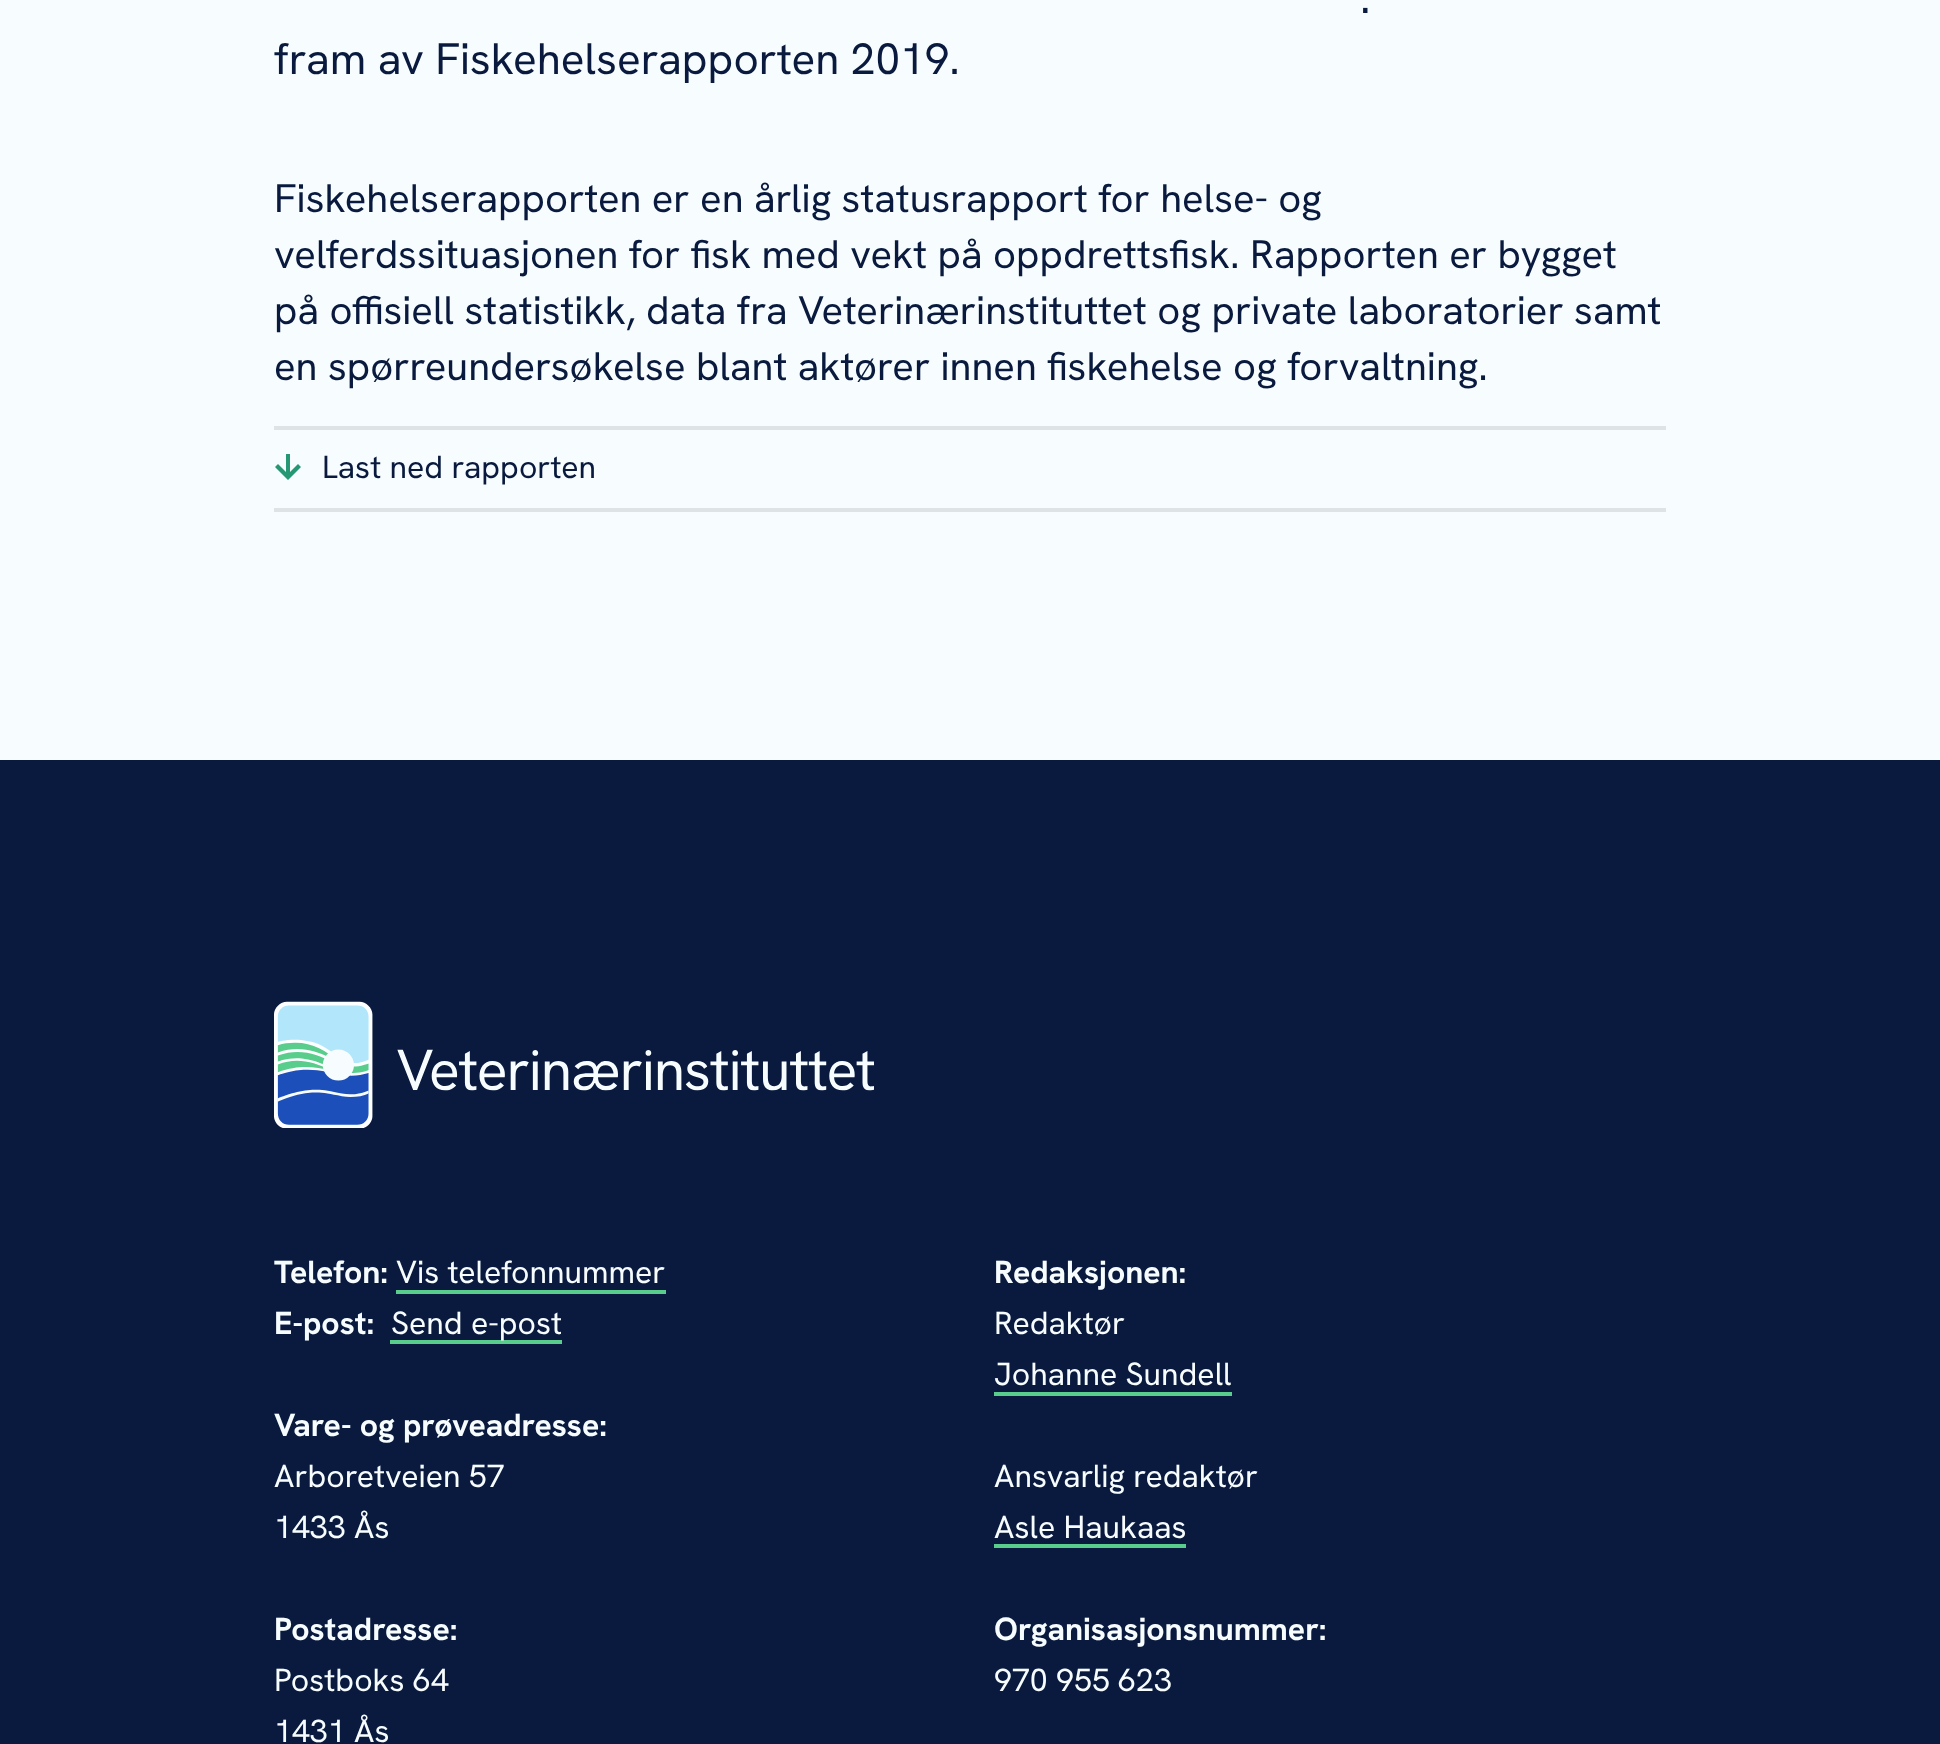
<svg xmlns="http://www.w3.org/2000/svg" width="1940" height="1744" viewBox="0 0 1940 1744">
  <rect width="100%" height="100%" fill="#f7fdff"/>
  <path d="M274 426h1392v4H274z" fill="#dee4e6"/>
  <path d="M274 508h1392v4H274z" fill="#dee4e6"/>
  <path d="M286 472L278 464L275 467L288 480L301 467L298 464L290 472V454H286Z" fill="#259873" fill-rule="evenodd"/>
  <path d="M0 760h1940v984H0z" fill="#091a3e"/>
  <image x="274" y="1001" width="600" height="127" href="img/1.png"/>
  <path d="M396 1290h270v4H396z" fill="#59cd8b"/>
  <path d="M390 1340h172v4H390z" fill="#59cd8b"/>
  <path d="M994 1392h238v4H994z" fill="#59cd8b"/>
  <path d="M994 1544h192v4H994z" fill="#59cd8b"/>
  <g font-family="Hanken Grotesk" font-size="44" fill="#091a3e">
    <text x="1360" y="13">.</text>
    <text x="274" y="74">fram av Fiskehelserapporten 2019.</text>
  </g>
  <g font-family="Hanken Grotesk" font-size="40" fill="#091a3e">
    <text x="274" y="212">Fiskehelserapporten er en årlig statusrapport for helse- og</text>
    <text x="274" y="268">velferdssituasjonen for fisk med vekt på oppdrettsfisk. Rapporten er bygget</text>
    <text x="274" y="324">på offisiell statistikk, data fra Veterinærinstituttet og private laboratorier samt</text>
    <text x="274" y="380">en spørreundersøkelse blant aktører innen fiskehelse og forvaltning.</text>
  </g>
  <text x="322" y="478" font-family="Hanken Grotesk" font-size="32" fill="#091a3e">Last ned rapporten</text>
  <text x="274" y="1283" font-family="Hanken Grotesk" font-size="32" font-weight="bold" fill="#f7fdff">Telefon:</text>
  <text x="396" y="1283" font-family="Hanken Grotesk" font-size="32" fill="#f7fdff">Vis telefonnummer</text>
  <text x="274" y="1334" font-family="Hanken Grotesk" font-size="32" font-weight="bold" fill="#f7fdff">E-post:</text>
  <text x="391" y="1334" font-family="Hanken Grotesk" font-size="32" fill="#f7fdff">Send e-post</text>
  <text x="274" y="1436" font-family="Hanken Grotesk" font-size="32" font-weight="bold" fill="#f7fdff">Vare- og prøveadresse:</text>
  <g font-family="Hanken Grotesk" font-size="32" fill="#f7fdff">
    <text x="274" y="1487">Arboretveien 57</text>
    <text x="274" y="1538">1433 Ås</text>
  </g>
  <text x="274" y="1640" font-family="Hanken Grotesk" font-size="32" font-weight="bold" fill="#f7fdff">Postadresse:</text>
  <g font-family="Hanken Grotesk" font-size="32" fill="#f7fdff">
    <text x="274" y="1691">Postboks 64</text>
    <text x="274" y="1742">1431 Ås</text>
  </g>
  <text x="994" y="1283" font-family="Hanken Grotesk" font-size="32" font-weight="bold" fill="#f7fdff">Redaksjonen:</text>
  <g font-family="Hanken Grotesk" font-size="32" fill="#f7fdff">
    <text x="994" y="1334">Redaktør</text>
    <text x="994" y="1385">Johanne Sundell</text>
    <text x="994" y="1487">Ansvarlig redaktør</text>
    <text x="994" y="1538">Asle Haukaas</text>
  </g>
  <text x="994" y="1640" font-family="Hanken Grotesk" font-size="32" font-weight="bold" fill="#f7fdff">Organisasjonsnummer:</text>
  <text x="994" y="1691" font-family="Hanken Grotesk" font-size="32" fill="#f7fdff">970 955 623</text>
</svg>
